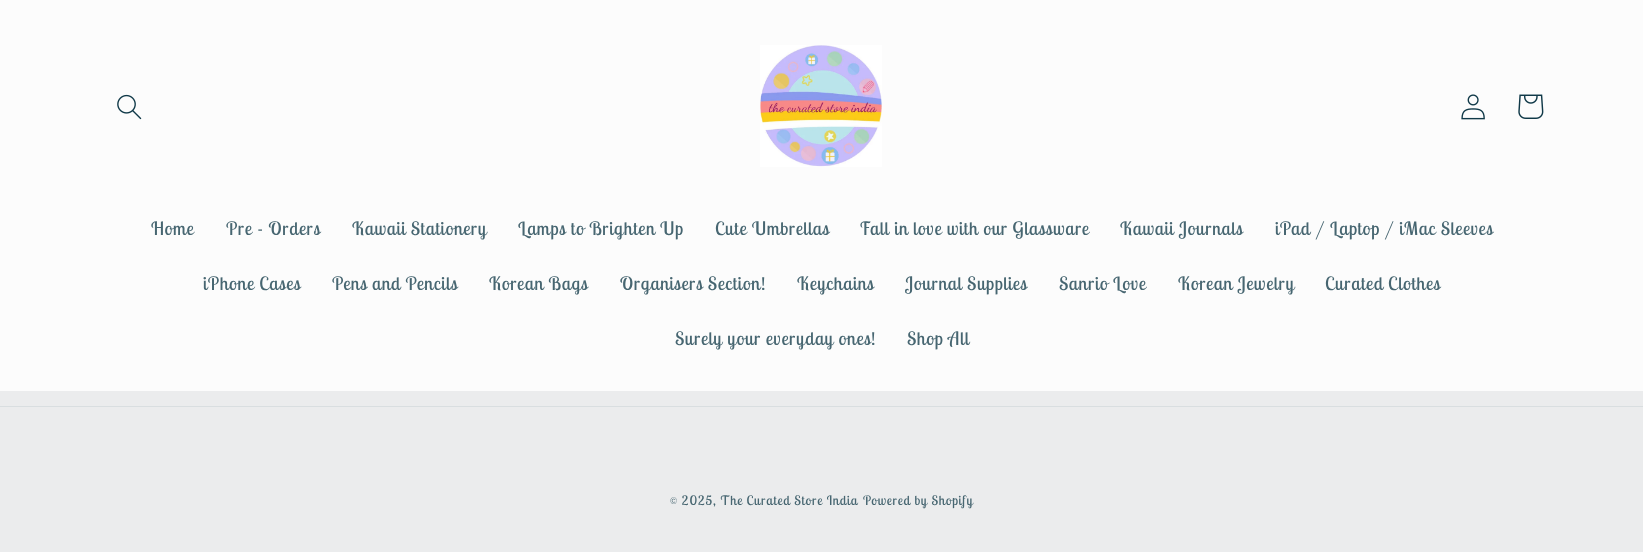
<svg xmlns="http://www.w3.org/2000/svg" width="1643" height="552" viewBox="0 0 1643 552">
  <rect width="100%" height="100%" fill="#ebeced"/>
  <path d="M0 0h1643v391H0z" fill="#fcfcfc"/>
  <image x="117" y="94" width="25" height="26" href="img/1.png"/>
  <image x="760" y="45" width="122" height="122" href="img/2.png"/>
  <image x="1461" y="94" width="24" height="26" href="img/3.png"/>
  <image x="1518" y="94" width="26" height="25" href="img/4.png"/>
  <path d="M0 406h1643v1H0z" fill="#d9dee0"/>
  <g font-family="Lobster Two" font-size="18.4" letter-spacing="0.8" fill="#476671">
    <text x="151" y="235">Home</text>
    <text x="226" y="235">Pre - Orders</text>
    <text x="352" y="235">Kawaii Stationery</text>
    <text x="518" y="235">Lamps to Brighten Up</text>
    <text x="715" y="235">Cute Umbrellas</text>
    <text x="860" y="235">Fall in love with our Glassware</text>
    <text x="1120" y="235">Kawaii Journals</text>
    <text x="1275" y="235">iPad / Laptop / iMac Sleeves</text>
    <text x="203" y="290">iPhone Cases</text>
    <text x="332" y="290">Pens and Pencils</text>
    <text x="489" y="290">Korean Bags</text>
    <text x="620" y="290">Organisers Section!</text>
    <text x="797" y="290">Keychains</text>
    <text x="905" y="290">Journal Supplies</text>
    <text x="1059" y="290">Sanrio Love</text>
    <text x="1178" y="290">Korean Jewelry</text>
    <text x="1325" y="290">Curated Clothes</text>
    <text x="675" y="345">Surely your everyday ones!</text>
    <text x="907" y="345">Shop All</text>
  </g>
  <g font-family="Lobster Two" font-size="13.1" letter-spacing="0.9" fill="#476671">
    <text x="670" y="505">© 2025, The Curated Store India</text>
    <text x="863" y="505">Powered by Shopify</text>
  </g>
</svg>
